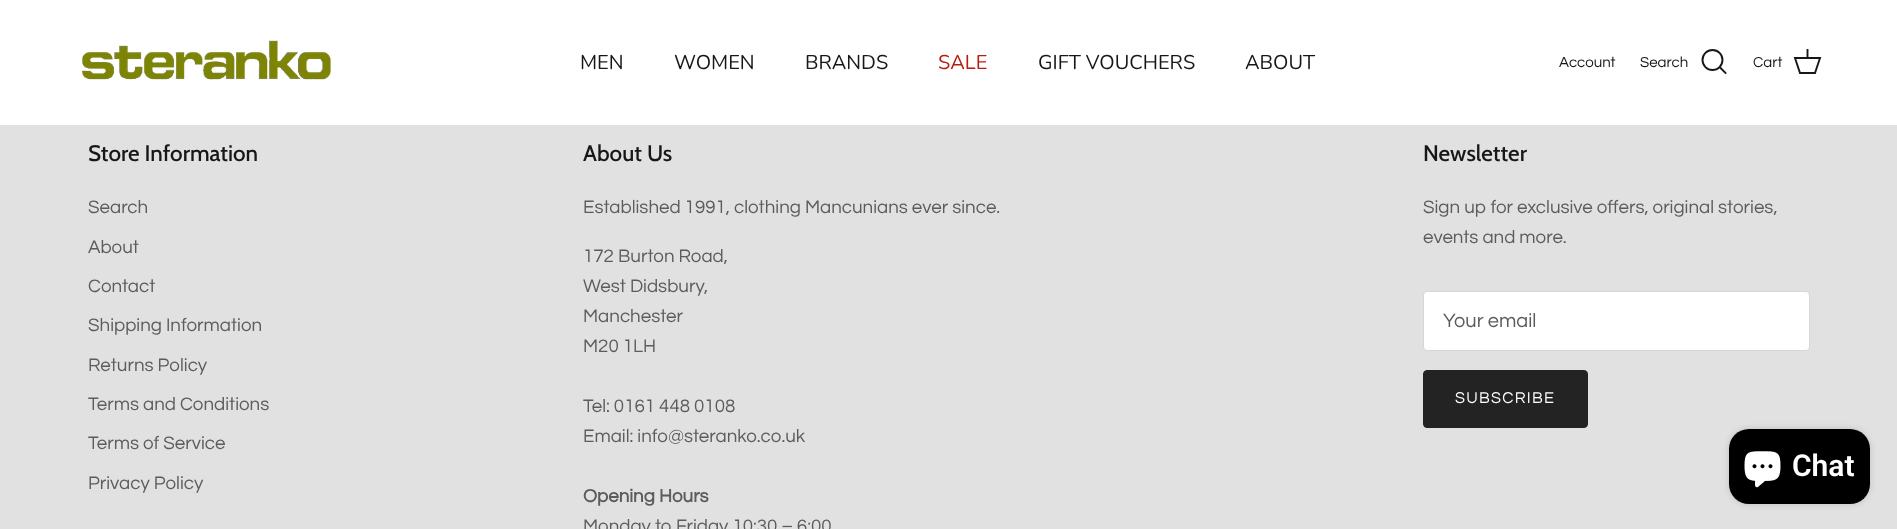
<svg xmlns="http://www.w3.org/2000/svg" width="1897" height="529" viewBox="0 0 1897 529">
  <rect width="100%" height="100%" fill="#e1e1e1"/>
  <path d="M0 0h1897v125H0z" fill="#fff"/>
  <path d="M0 125h1897v1H0z" fill="#dfe3e8"/>
  <image x="81" y="40" width="251" height="40" href="img/1.png"/>
  <circle cx="1712.5" cy="60" r="10" fill="none" stroke="#171717" stroke-width="1.9"/>
  <path d="M1720 67.5L1725.5 73" fill="none" stroke="#171717" stroke-width="1.9" stroke-linecap="square"/>
  <path d="M1795 58H1820L1815 73H1800Z" fill="none" stroke="#171717" stroke-width="1.9"/>
  <path d="M1807.5 57.5V50" fill="none" stroke="#171717" stroke-width="1.9" stroke-linecap="square"/>
  <rect x="1423.5" y="291.5" width="386" height="59" rx="3.5" fill="#fff" stroke="#d6d6d6"/>
  <rect x="1423.5" y="370.5" width="164" height="57" rx="3.5" fill="#232323" stroke="#232323"/>
  <rect x="1729" y="429" width="141" height="75" rx="20" fill="#00000026" filter="blur(3px)"/>
  <rect x="1729" y="429" width="141" height="75" rx="20" fill="#000"/>
  <image x="1744" y="451" width="37" height="37" href="img/2.png"/>
  <g font-family="Nunito" font-size="20" fill="#171717">
    <text x="580" y="69">MEN</text>
    <text x="674" y="69">WOMEN</text>
    <text x="805" y="69">BRANDS</text>
  </g>
  <text x="938" y="69" font-family="Nunito" font-size="20" fill="#b61d0f">SALE</text>
  <g font-family="Nunito" font-size="20" fill="#171717">
    <text x="1038" y="69">GIFT VOUCHERS</text>
    <text x="1245" y="69">ABOUT</text>
  </g>
  <g font-family="Questrial" font-size="15" fill="#171717">
    <text x="1559" y="67">Account</text>
    <text x="1640" y="67">Search</text>
    <text x="1753" y="67">Cart</text>
  </g>
  <text x="88" y="161" font-family="Cabin" font-size="22.5" font-weight="500" fill="#171717">Store Information</text>
  <g font-family="Questrial" font-size="18.75" fill="#5c5c5c">
    <text x="88" y="213">Search</text>
    <text x="88" y="253">About</text>
    <text x="88" y="292">Contact</text>
    <text x="88" y="331">Shipping Information</text>
    <text x="88" y="371">Returns Policy</text>
    <text x="88" y="410">Terms and Conditions</text>
    <text x="88" y="449">Terms of Service</text>
    <text x="88" y="489">Privacy Policy</text>
  </g>
  <text x="583" y="161" font-family="Cabin" font-size="22.5" font-weight="500" fill="#171717">About Us</text>
  <g font-family="Questrial" font-size="18.75" fill="#5c5c5c">
    <text x="583" y="213">Established 1991, clothing Mancunians ever since.</text>
    <text x="583" y="262">172 Burton Road,</text>
    <text x="583" y="292">West Didsbury,</text>
    <text x="583" y="322">Manchester</text>
    <text x="583" y="352">M20 1LH</text>
    <text x="583" y="412">Tel: 0161 448 0108</text>
    <text x="583" y="442">Email: info@steranko.co.uk</text>
  </g>
  <text x="583" y="502" font-family="Questrial" font-size="18.75" font-weight="bold" fill="#5c5c5c">Opening Hours</text>
  <text x="583" y="532" font-family="Questrial" font-size="18.75" fill="#5c5c5c">Monday to Friday 10:30 – 6:00</text>
  <text x="1423" y="161" font-family="Cabin" font-size="22.5" font-weight="500" fill="#171717">Newsletter</text>
  <g font-family="Questrial" font-size="18.75" fill="#5c5c5c">
    <text x="1423" y="213">Sign up for exclusive offers, original stories,</text>
    <text x="1423" y="243">events and more.</text>
  </g>
  <text x="1443" y="327" font-family="Questrial" font-size="20" fill="#5c5c5c">Your email</text>
  <text x="1455" y="403" font-family="Questrial" font-size="16.25" letter-spacing="1.25" fill="#fff">SUBSCRIBE</text>
  <text x="1792" y="476" font-family="Roboto" font-size="30" font-weight="600" fill="#fff">Chat</text>
</svg>
